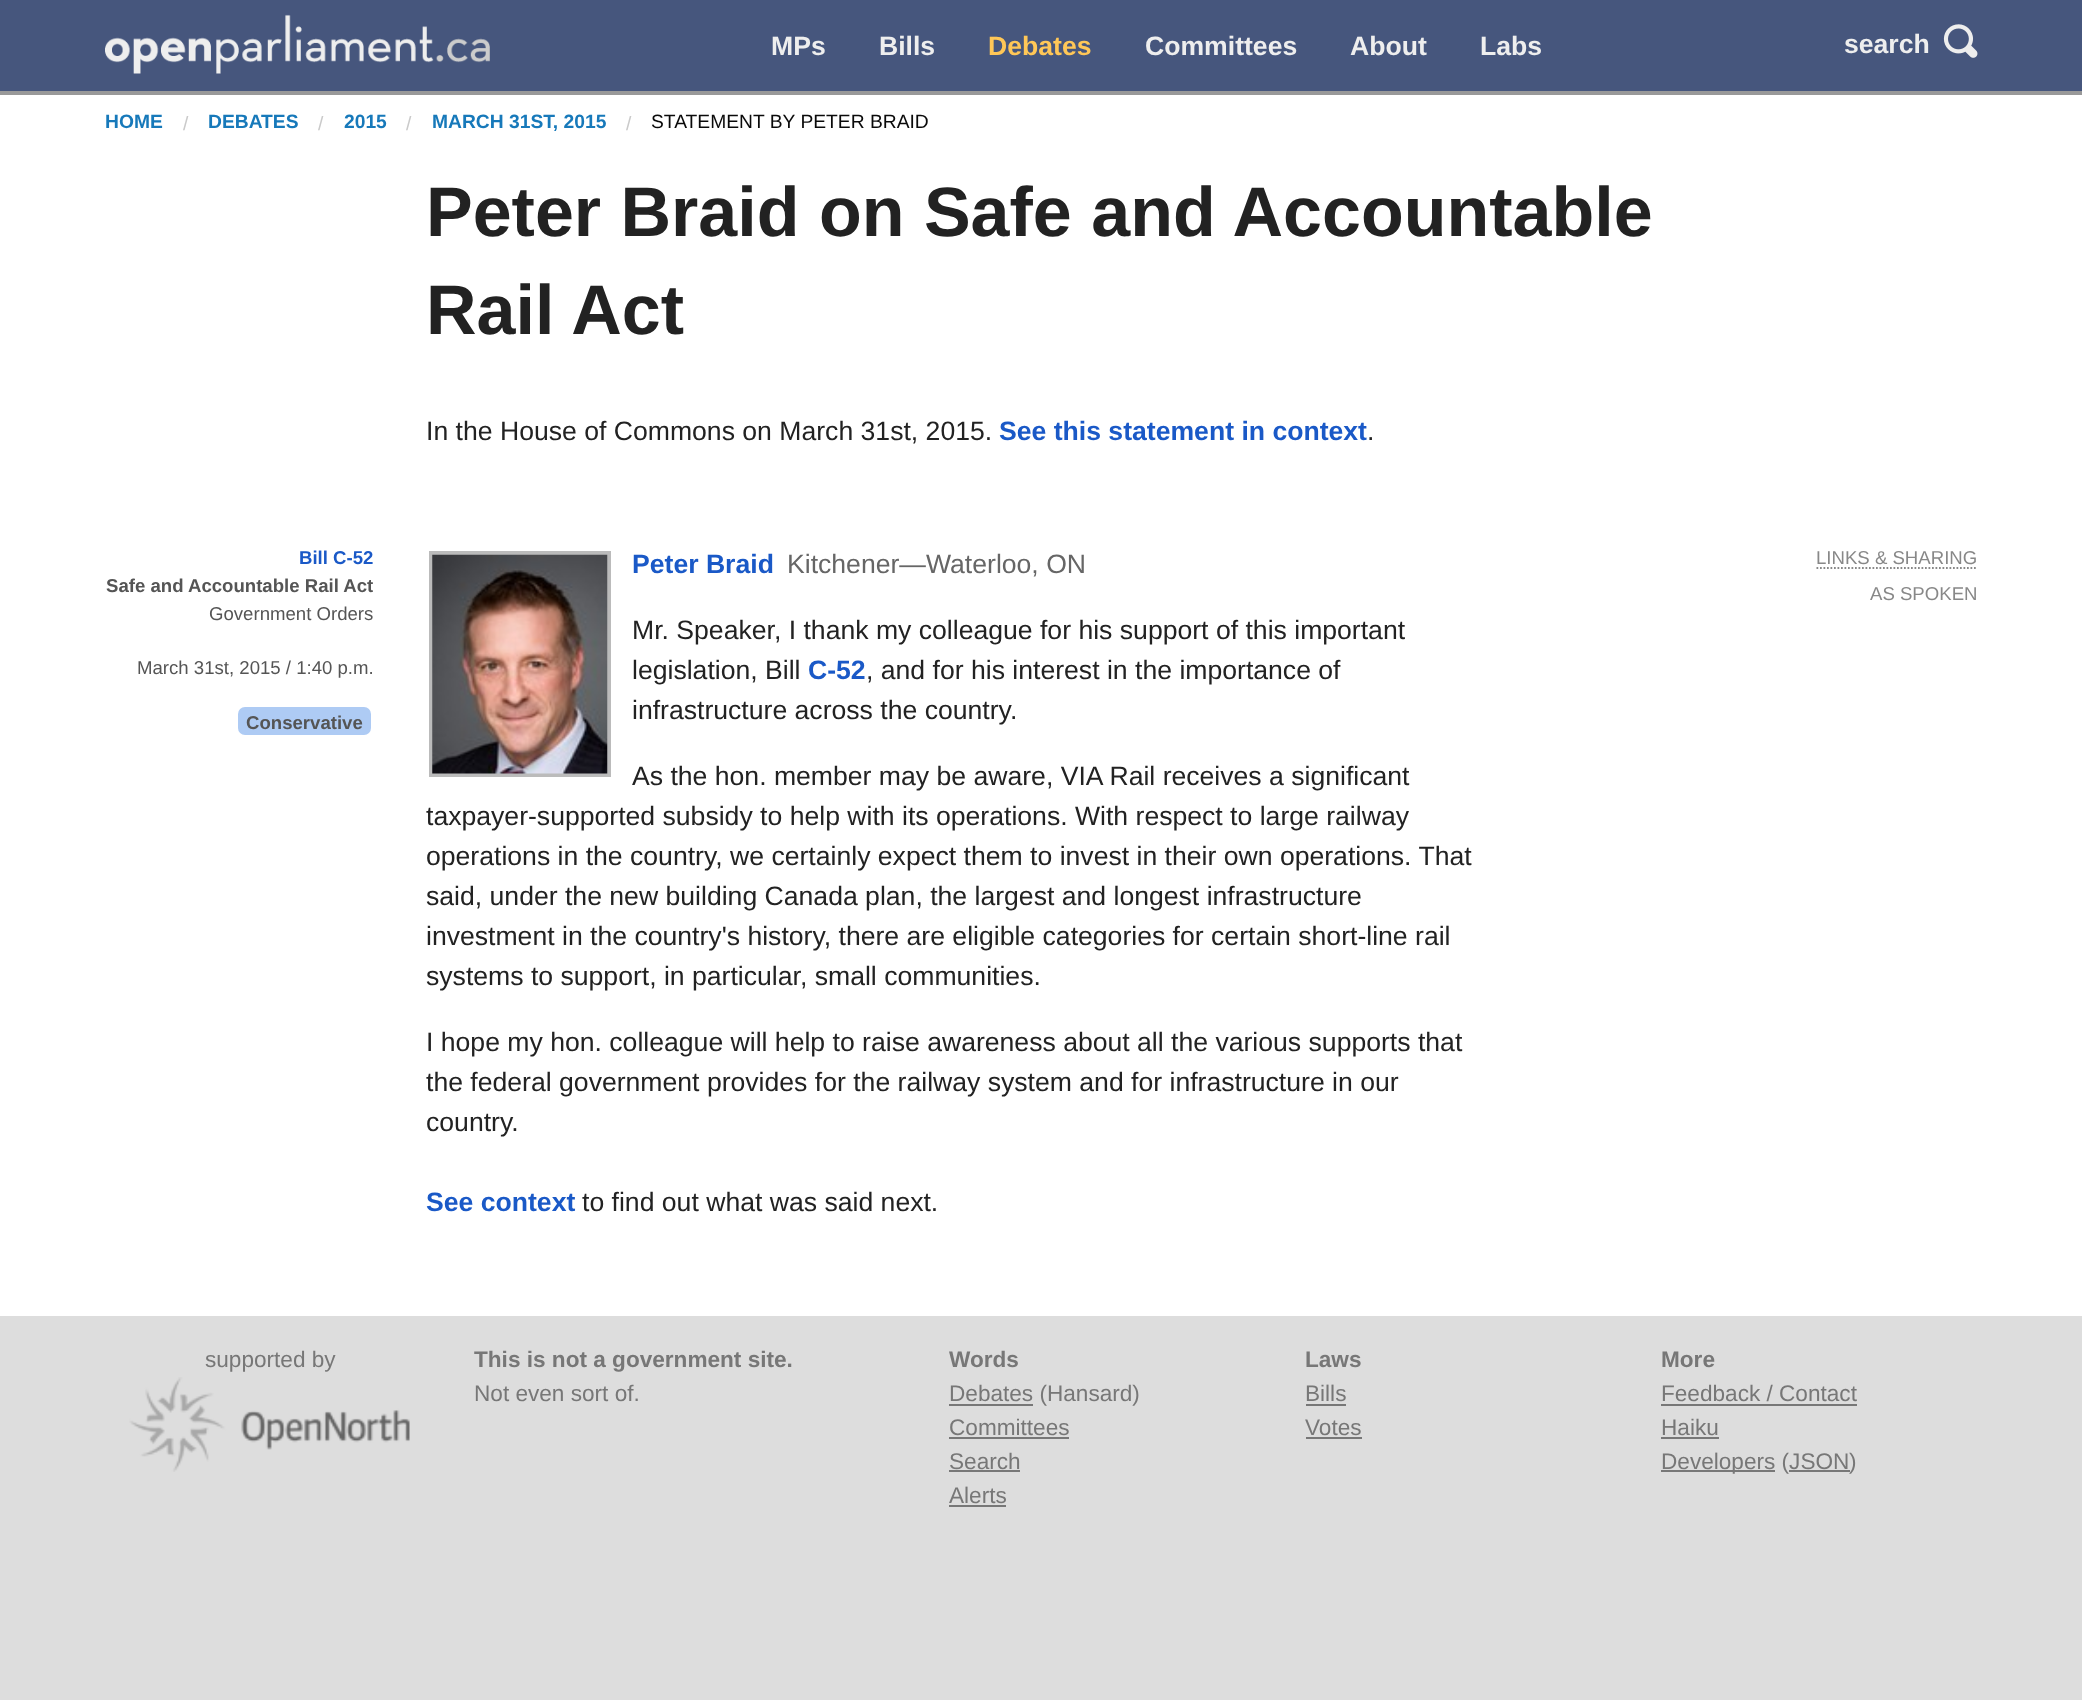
<svg xmlns="http://www.w3.org/2000/svg" width="2082" height="1700" viewBox="0 0 2082 1700">
  <rect width="100%" height="100%" fill="#ddd"/>
  <path d="M0 0h2082v91H0z" fill="#46567d"/>
  <image x="105" y="14" width="385" height="60" href="img/1.png"/>
  <image x="1943" y="24" width="35" height="34" href="img/2.png"/>
  <path d="M0 95h2082v1221H0z" fill="#fff"/>
  <path d="M0 91h2082v4H0z" fill="#999"/>
  <rect x="238" y="707" width="133" height="28" rx="7" fill="#aecbf4"/>
  <path d="M431 553h178v222H431z" fill="none" stroke="#bbb" stroke-width="4"/>
  <image x="432" y="554" width="176" height="220" href="img/3.png"/>
  <path d="M1816.5 568H1977.5" fill="none" stroke="#888" stroke-width="1.8" stroke-dasharray="1.75 1.75"/>
  <image x="129" y="1377" width="281" height="95" href="img/4.png"/>
  <path d="M949 1404h84v2H949z" fill="#777"/>
  <path d="M949 1437h120v2H949z" fill="#777"/>
  <path d="M949 1470h71v2H949z" fill="#777"/>
  <path d="M949 1505h57v2H949z" fill="#777"/>
  <path d="M1306 1404h40v2H1306z" fill="#777"/>
  <path d="M1306 1437h56v2H1306z" fill="#777"/>
  <path d="M1661 1404h196v2H1661z" fill="#777"/>
  <path d="M1661 1437h58v2H1661z" fill="#777"/>
  <path d="M1661 1470h114v2H1661z" fill="#777"/>
  <path d="M1789 1470h61v2H1789z" fill="#777"/>
  <g font-family="Liberation Sans" font-size="26.6" font-weight="bold" fill="#eee">
    <text x="771" y="55">MPs</text>
    <text x="879" y="55">Bills</text>
  </g>
  <text x="988" y="55" font-family="Liberation Sans" font-size="26.6" font-weight="bold" fill="#ffc757">Debates</text>
  <g font-family="Liberation Sans" font-size="26.6" font-weight="bold" fill="#eee">
    <text x="1145" y="55">Committees</text>
    <text x="1350" y="55">About</text>
    <text x="1480" y="55">Labs</text>
    <text x="1844" y="53">search</text>
  </g>
  <text x="105" y="128" font-family="Liberation Sans" font-size="19.25" font-weight="bold" fill="#1779ba">HOME</text>
  <text x="183" y="130" font-family="Liberation Sans" font-size="19.25" fill="#cacaca">/</text>
  <text x="208" y="128" font-family="Liberation Sans" font-size="19.25" font-weight="bold" fill="#1779ba">DEBATES</text>
  <text x="318" y="130" font-family="Liberation Sans" font-size="19.25" fill="#cacaca">/</text>
  <text x="344" y="128" font-family="Liberation Sans" font-size="19.25" font-weight="bold" fill="#1779ba">2015</text>
  <text x="406" y="130" font-family="Liberation Sans" font-size="19.25" fill="#cacaca">/</text>
  <text x="432" y="128" font-family="Liberation Sans" font-size="19.25" font-weight="bold" fill="#1779ba">MARCH 31ST, 2015</text>
  <text x="626" y="130" font-family="Liberation Sans" font-size="19.25" fill="#cacaca">/</text>
  <text x="651" y="128" font-family="Liberation Sans" font-size="19.25" fill="#0a0a0a">STATEMENT BY PETER BRAID</text>
  <g font-family="Liberation Sans" font-size="70" font-weight="bold" fill="#222">
    <text x="426" y="236">Peter Braid on Safe and Accountable</text>
    <text x="426" y="334">Rail Act</text>
  </g>
  <text x="426" y="440" font-family="Liberation Sans" font-size="26.6" fill="#222">In the House of Commons on March 31st, 2015.</text>
  <text x="999" y="440" font-family="Liberation Sans" font-size="26.6" font-weight="bold" fill="#1a59c7">See this statement in context</text>
  <text x="1367" y="440" font-family="Liberation Sans" font-size="26.6" fill="#222">.</text>
  <text x="299" y="564" font-family="Liberation Sans" font-size="18.6" font-weight="bold" fill="#1a59c7">Bill C-52</text>
  <text x="106" y="592" font-family="Liberation Sans" font-size="18.6" font-weight="bold" fill="#555">Safe and Accountable Rail Act</text>
  <g font-family="Liberation Sans" font-size="18.6" fill="#555">
    <text x="209" y="620">Government Orders</text>
    <text x="137" y="674">March 31st, 2015 / 1:40 p.m.</text>
  </g>
  <text x="246" y="729" font-family="Liberation Sans" font-size="18.6" font-weight="bold" fill="#555">Conservative</text>
  <text x="632" y="573" font-family="Liberation Sans" font-size="26.6" font-weight="bold" fill="#1a59c7">Peter Braid</text>
  <text x="787" y="573" font-family="Liberation Sans" font-size="26.6" fill="#666">Kitchener—Waterloo, ON</text>
  <g font-family="Liberation Sans" font-size="26.6" fill="#222">
    <text x="632" y="639">Mr. Speaker, I thank my colleague for his support of this important</text>
    <text x="632" y="679">legislation, Bill</text>
  </g>
  <text x="808" y="679" font-family="Liberation Sans" font-size="26.6" font-weight="bold" fill="#1a59c7">C-52</text>
  <g font-family="Liberation Sans" font-size="26.6" fill="#222">
    <text x="866" y="679">, and for his interest in the importance of</text>
    <text x="632" y="719">infrastructure across the country.</text>
    <text x="632" y="785">As the hon. member may be aware, VIA Rail receives a significant</text>
    <text x="426" y="825">taxpayer-supported subsidy to help with its operations. With respect to large railway</text>
    <text x="426" y="865">operations in the country, we certainly expect them to invest in their own operations. That</text>
    <text x="426" y="905">said, under the new building Canada plan, the largest and longest infrastructure</text>
    <text x="426" y="945">investment in the country's history, there are eligible categories for certain short-line rail</text>
    <text x="426" y="985">systems to support, in particular, small communities.</text>
    <text x="426" y="1051">I hope my hon. colleague will help to raise awareness about all the various supports that</text>
    <text x="426" y="1091">the federal government provides for the railway system and for infrastructure in our</text>
    <text x="426" y="1131">country.</text>
  </g>
  <g font-family="Liberation Sans" font-size="18.6" fill="#888">
    <text x="1816" y="564">LINKS &amp; SHARING</text>
    <text x="1870" y="600">AS SPOKEN</text>
  </g>
  <text x="426" y="1211" font-family="Liberation Sans" font-size="26.6" font-weight="bold" fill="#1a59c7">See context</text>
  <text x="582" y="1211" font-family="Liberation Sans" font-size="26.6" fill="#222">to find out what was said next.</text>
  <text x="205" y="1367" font-family="Liberation Sans" font-size="22.6" fill="#777">supported by</text>
  <text x="474" y="1367" font-family="Liberation Sans" font-size="22.6" font-weight="bold" fill="#777">This is not a government site.</text>
  <text x="474" y="1401" font-family="Liberation Sans" font-size="22.6" fill="#777">Not even sort of.</text>
  <text x="949" y="1367" font-family="Liberation Sans" font-size="22.6" font-weight="bold" fill="#777">Words</text>
  <g font-family="Liberation Sans" font-size="22.6" fill="#777">
    <text x="949" y="1401">Debates (Hansard)</text>
    <text x="949" y="1435">Committees</text>
    <text x="949" y="1469">Search</text>
    <text x="949" y="1503">Alerts</text>
  </g>
  <text x="1305" y="1367" font-family="Liberation Sans" font-size="22.6" font-weight="bold" fill="#777">Laws</text>
  <g font-family="Liberation Sans" font-size="22.6" fill="#777">
    <text x="1305" y="1401">Bills</text>
    <text x="1305" y="1435">Votes</text>
  </g>
  <text x="1661" y="1367" font-family="Liberation Sans" font-size="22.6" font-weight="bold" fill="#777">More</text>
  <g font-family="Liberation Sans" font-size="22.6" fill="#777">
    <text x="1661" y="1401">Feedback / Contact</text>
    <text x="1661" y="1435">Haiku</text>
    <text x="1661" y="1469">Developers (JSON</text>
    <text x="1849" y="1469">)</text>
  </g>
</svg>
